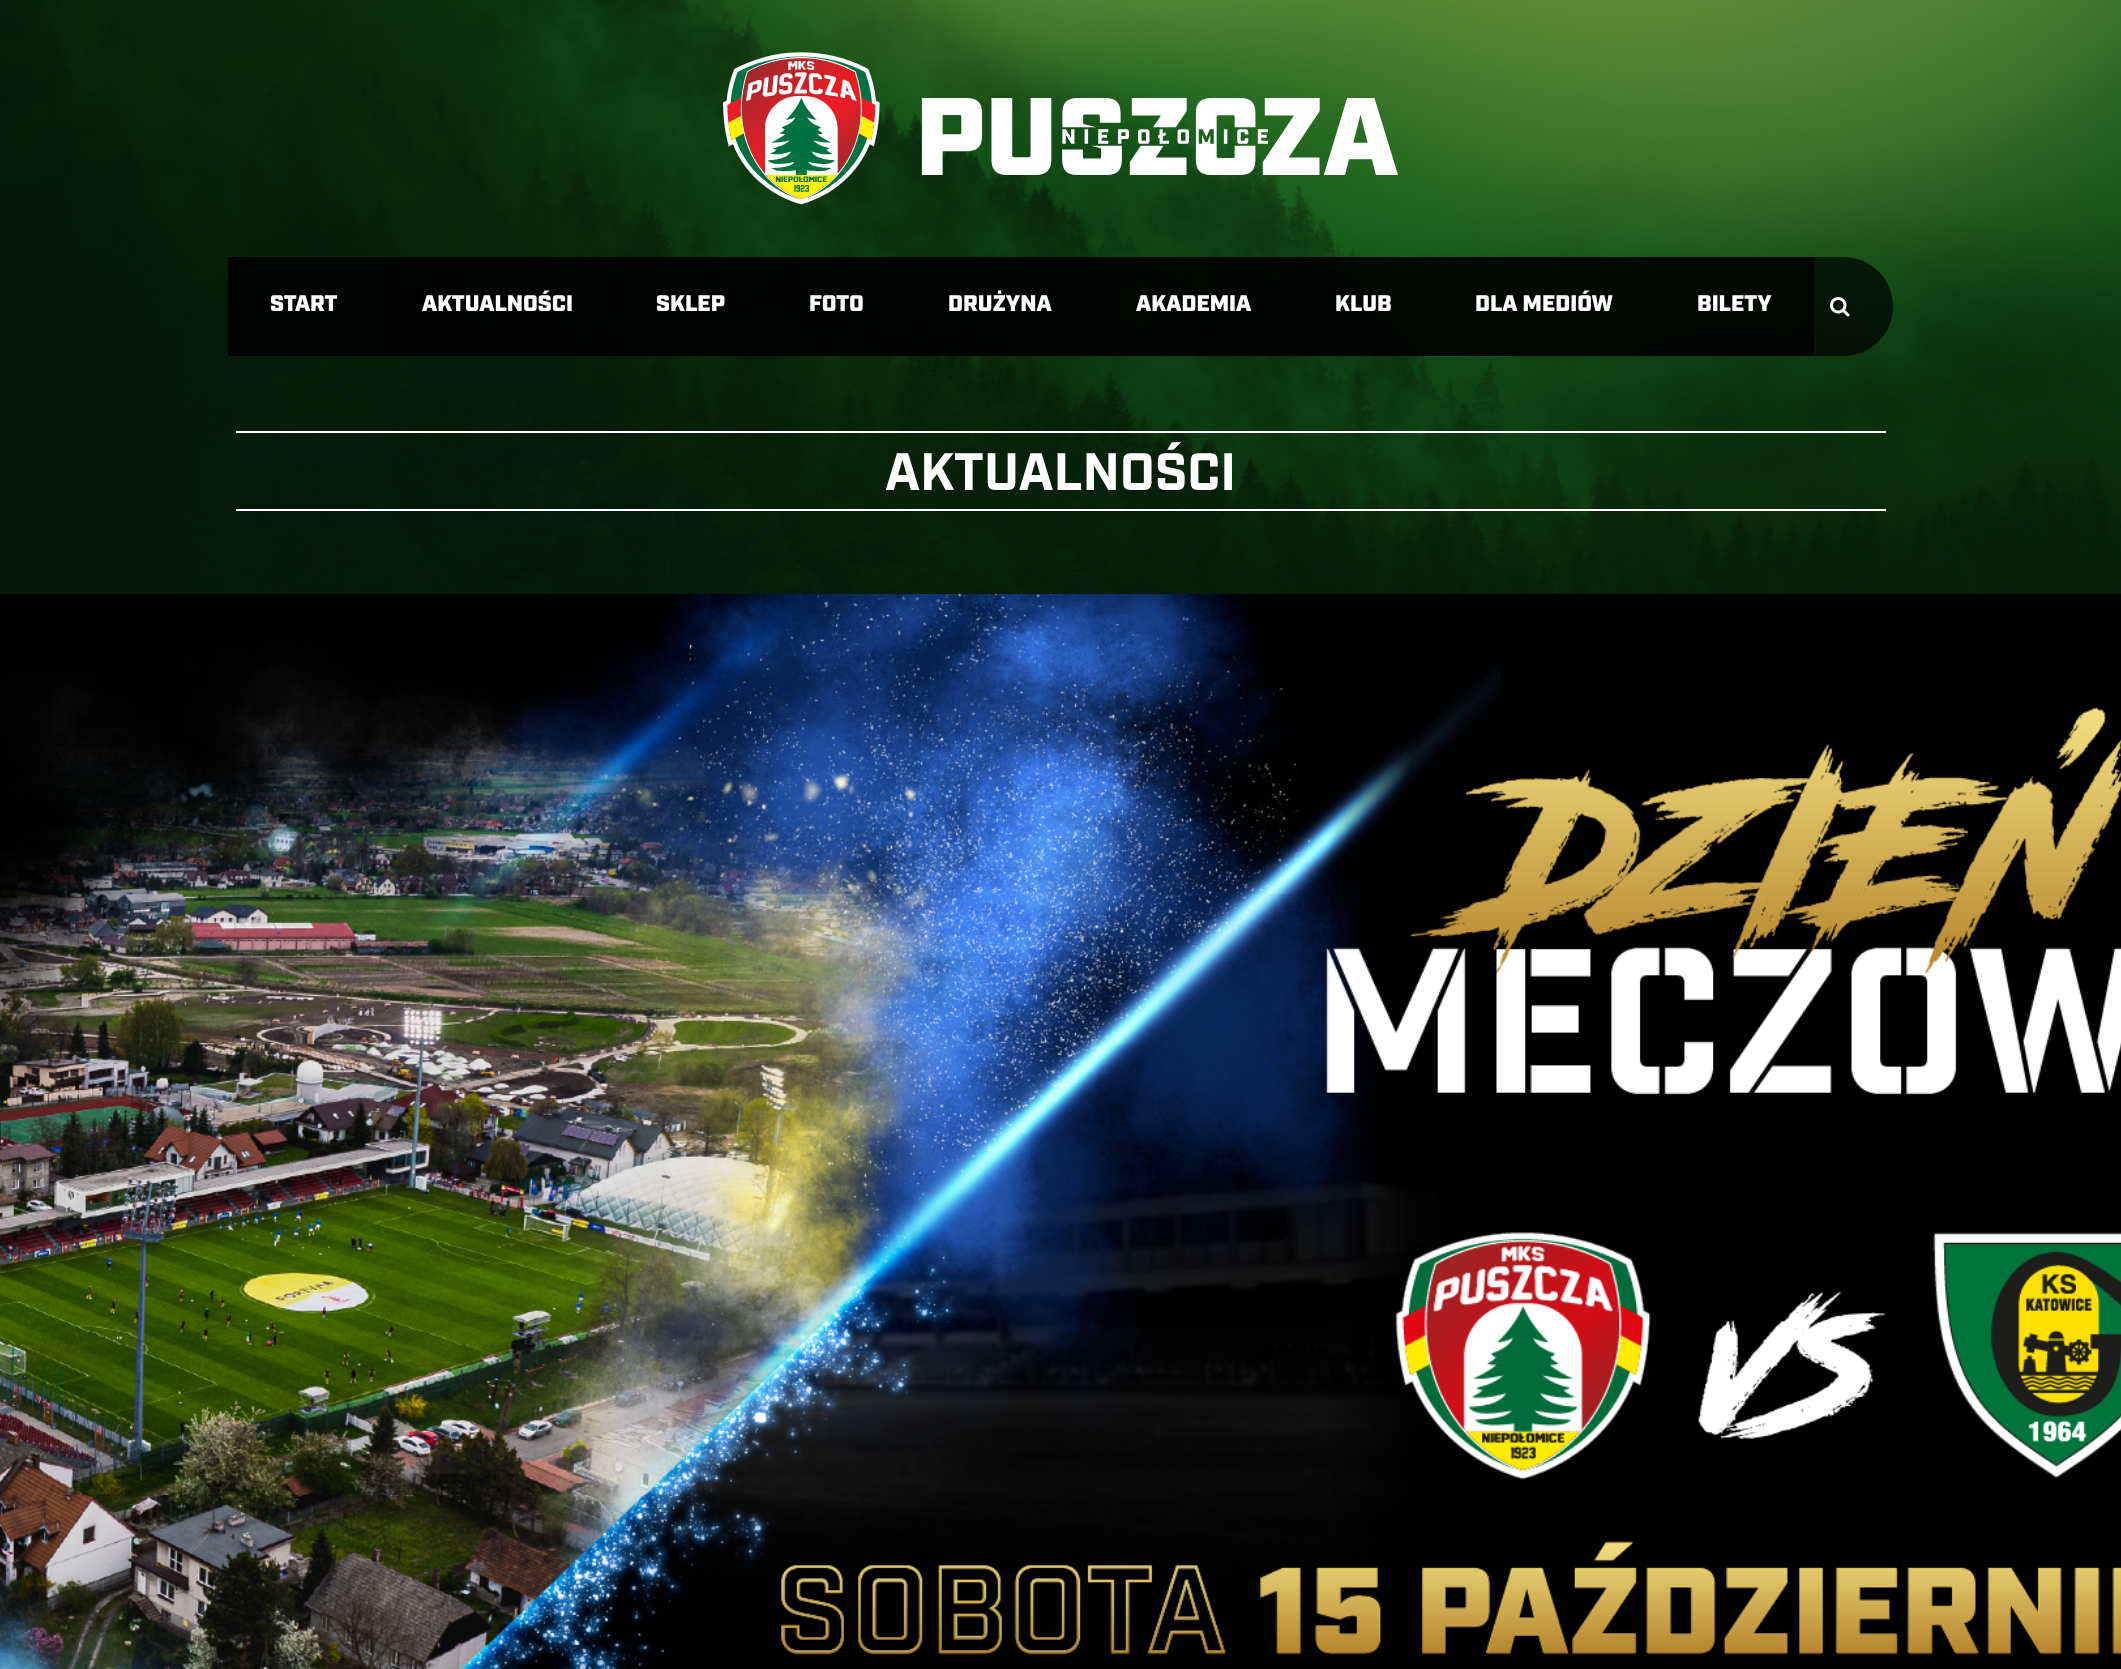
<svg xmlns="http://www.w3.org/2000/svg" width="2121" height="1669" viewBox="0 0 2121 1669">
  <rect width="100%" height="100%" fill="#fff"/>
  <image x="0" y="0" width="2121" height="594" href="img/1.png"/>
  <image x="723" y="52" width="675" height="153" href="img/2.png"/>
  <path d="M228 257H1843.5C1871 257 1893 279 1893 306.5C1893 334 1871 356 1843.5 356H228Z" fill="#000000b3"/>
  <path d="M228 257h152v99H228z" fill="#010301"/>
  <path d="M380 257h235v99H380z" fill="#000000b3"/>
  <path d="M615 257h153v99H615z" fill="#000000b3"/>
  <path d="M768 257h138v99H768z" fill="#000000b3"/>
  <path d="M906 257h188v99H906z" fill="#000000b3"/>
  <path d="M1094 257h199v99H1094z" fill="#000000b3"/>
  <path d="M1293 257h141v99H1293z" fill="#000000b3"/>
  <path d="M1434 257h221v99H1434z" fill="#000000b3"/>
  <path d="M1655 257h159v99H1655z" fill="#000000b3"/>
  <image x="1830" y="297" width="20" height="20" href="img/3.png"/>
  <path d="M236 431h1650v2H236z" fill="#fff"/>
  <path d="M236 509h1650v2H236z" fill="#fff"/>
  <image x="0" y="594" width="2121" height="1075" href="img/4.png"/>
  <g font-family="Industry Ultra" font-size="22.5" font-weight="900" fill="#fff">
    <text x="270" y="311">START</text>
    <text x="422" y="311">AKTUALNOŚCI</text>
    <text x="656" y="311">SKLEP</text>
    <text x="809" y="311">FOTO</text>
    <text x="948" y="311">DRUŻYNA</text>
    <text x="1136" y="311">AKADEMIA</text>
    <text x="1335" y="311">KLUB</text>
    <text x="1475" y="311">DLA MEDIÓW</text>
    <text x="1697" y="311">BILETY</text>
  </g>
  <text x="885" y="490" font-family="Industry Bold" font-size="52.5" font-weight="bold" fill="#fff">AKTUALNOŚCI</text>
</svg>
